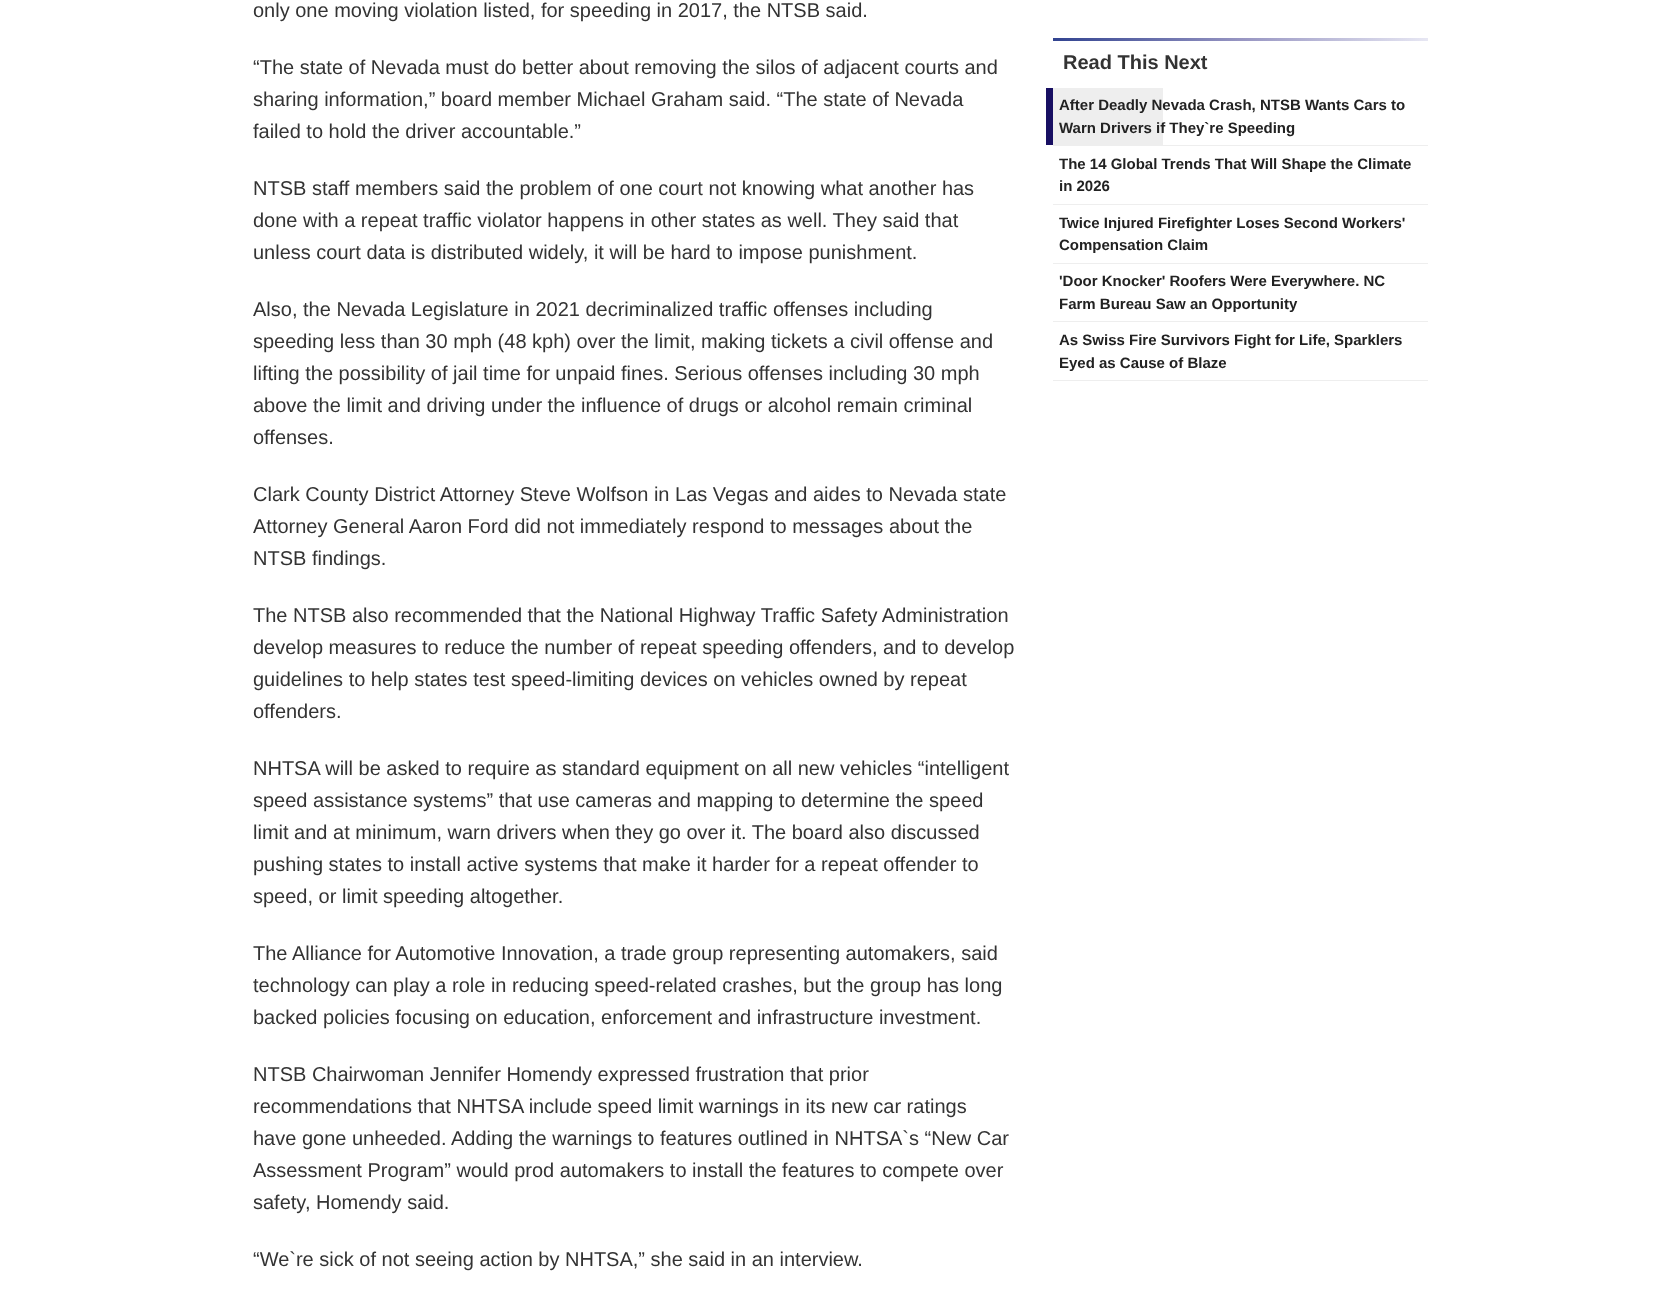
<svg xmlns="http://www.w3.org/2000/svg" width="1680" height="1300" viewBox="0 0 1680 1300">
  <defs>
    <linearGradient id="g1" gradientUnits="userSpaceOnUse" x1="1053" y1="39" x2="1428" y2="39"><stop offset="0" stop-color="#314390"/><stop offset="0.5" stop-color="#9795c2"/><stop offset="1" stop-color="#e7e7f3"/></linearGradient>
  </defs>
  <rect width="100%" height="100%" fill="#fff"/>
  <path d="M1053 38h375v3H1053z" fill="url(#g1)"/>
  <path d="M1053 145h375v1H1053z" fill="#eee"/>
  <path d="M1046 88h7v57H1046z" fill="#180f62"/>
  <path d="M1053 88h110v57H1053z" fill="#eee"/>
  <path d="M1053 204h375v1H1053z" fill="#eee"/>
  <path d="M1053 263h375v1H1053z" fill="#eee"/>
  <path d="M1053 321h375v1H1053z" fill="#eee"/>
  <path d="M1053 380h375v1H1053z" fill="#eee"/>
  <g font-family="Liberation Sans" font-size="20" fill="#333">
    <text x="253" y="17">only one moving violation listed, for speeding in 2017, the NTSB said.</text>
    <text x="253" y="74">“The state of Nevada must do better about removing the silos of adjacent courts and</text>
    <text x="253" y="106">sharing information,” board member Michael Graham said. “The state of Nevada</text>
    <text x="253" y="138">failed to hold the driver accountable.”</text>
    <text x="253" y="195">NTSB staff members said the problem of one court not knowing what another has</text>
    <text x="253" y="227">done with a repeat traffic violator happens in other states as well. They said that</text>
    <text x="253" y="259">unless court data is distributed widely, it will be hard to impose punishment.</text>
    <text x="253" y="316">Also, the Nevada Legislature in 2021 decriminalized traffic offenses including</text>
    <text x="253" y="348">speeding less than 30 mph (48 kph) over the limit, making tickets a civil offense and</text>
    <text x="253" y="380">lifting the possibility of jail time for unpaid fines. Serious offenses including 30 mph</text>
    <text x="253" y="412">above the limit and driving under the influence of drugs or alcohol remain criminal</text>
    <text x="253" y="444">offenses.</text>
    <text x="253" y="501">Clark County District Attorney Steve Wolfson in Las Vegas and aides to Nevada state</text>
    <text x="253" y="533">Attorney General Aaron Ford did not immediately respond to messages about the</text>
    <text x="253" y="565">NTSB findings.</text>
    <text x="253" y="622">The NTSB also recommended that the National Highway Traffic Safety Administration</text>
    <text x="253" y="654">develop measures to reduce the number of repeat speeding offenders, and to develop</text>
    <text x="253" y="686">guidelines to help states test speed-limiting devices on vehicles owned by repeat</text>
    <text x="253" y="718">offenders.</text>
    <text x="253" y="775">NHTSA will be asked to require as standard equipment on all new vehicles “intelligent</text>
    <text x="253" y="807">speed assistance systems” that use cameras and mapping to determine the speed</text>
    <text x="253" y="839">limit and at minimum, warn drivers when they go over it. The board also discussed</text>
    <text x="253" y="871">pushing states to install active systems that make it harder for a repeat offender to</text>
    <text x="253" y="903">speed, or limit speeding altogether.</text>
    <text x="253" y="960">The Alliance for Automotive Innovation, a trade group representing automakers, said</text>
    <text x="253" y="992">technology can play a role in reducing speed-related crashes, but the group has long</text>
    <text x="253" y="1024">backed policies focusing on education, enforcement and infrastructure investment.</text>
    <text x="253" y="1081">NTSB Chairwoman Jennifer Homendy expressed frustration that prior</text>
    <text x="253" y="1113">recommendations that NHTSA include speed limit warnings in its new car ratings</text>
    <text x="253" y="1145">have gone unheeded. Adding the warnings to features outlined in NHTSA`s “New Car</text>
    <text x="253" y="1177">Assessment Program” would prod automakers to install the features to compete over</text>
    <text x="253" y="1209">safety, Homendy said.</text>
    <text x="253" y="1266">“We`re sick of not seeing action by NHTSA,” she said in an interview.</text>
  </g>
  <text x="1063" y="69" font-family="Liberation Sans" font-size="20" font-weight="bold" fill="#333">Read This Next</text>
  <g font-family="Liberation Sans" font-size="15" font-weight="bold" fill="#222">
    <text x="1059" y="110">After Deadly Nevada Crash, NTSB Wants Cars to</text>
    <text x="1059" y="133">Warn Drivers if They`re Speeding</text>
    <text x="1059" y="169">The 14 Global Trends That Will Shape the Climate</text>
    <text x="1059" y="191">in 2026</text>
    <text x="1059" y="228">Twice Injured Firefighter Loses Second Workers'</text>
    <text x="1059" y="250">Compensation Claim</text>
    <text x="1059" y="286">'Door Knocker' Roofers Were Everywhere. NC</text>
    <text x="1059" y="309">Farm Bureau Saw an Opportunity</text>
    <text x="1059" y="345">As Swiss Fire Survivors Fight for Life, Sparklers</text>
    <text x="1059" y="368">Eyed as Cause of Blaze</text>
  </g>
</svg>
